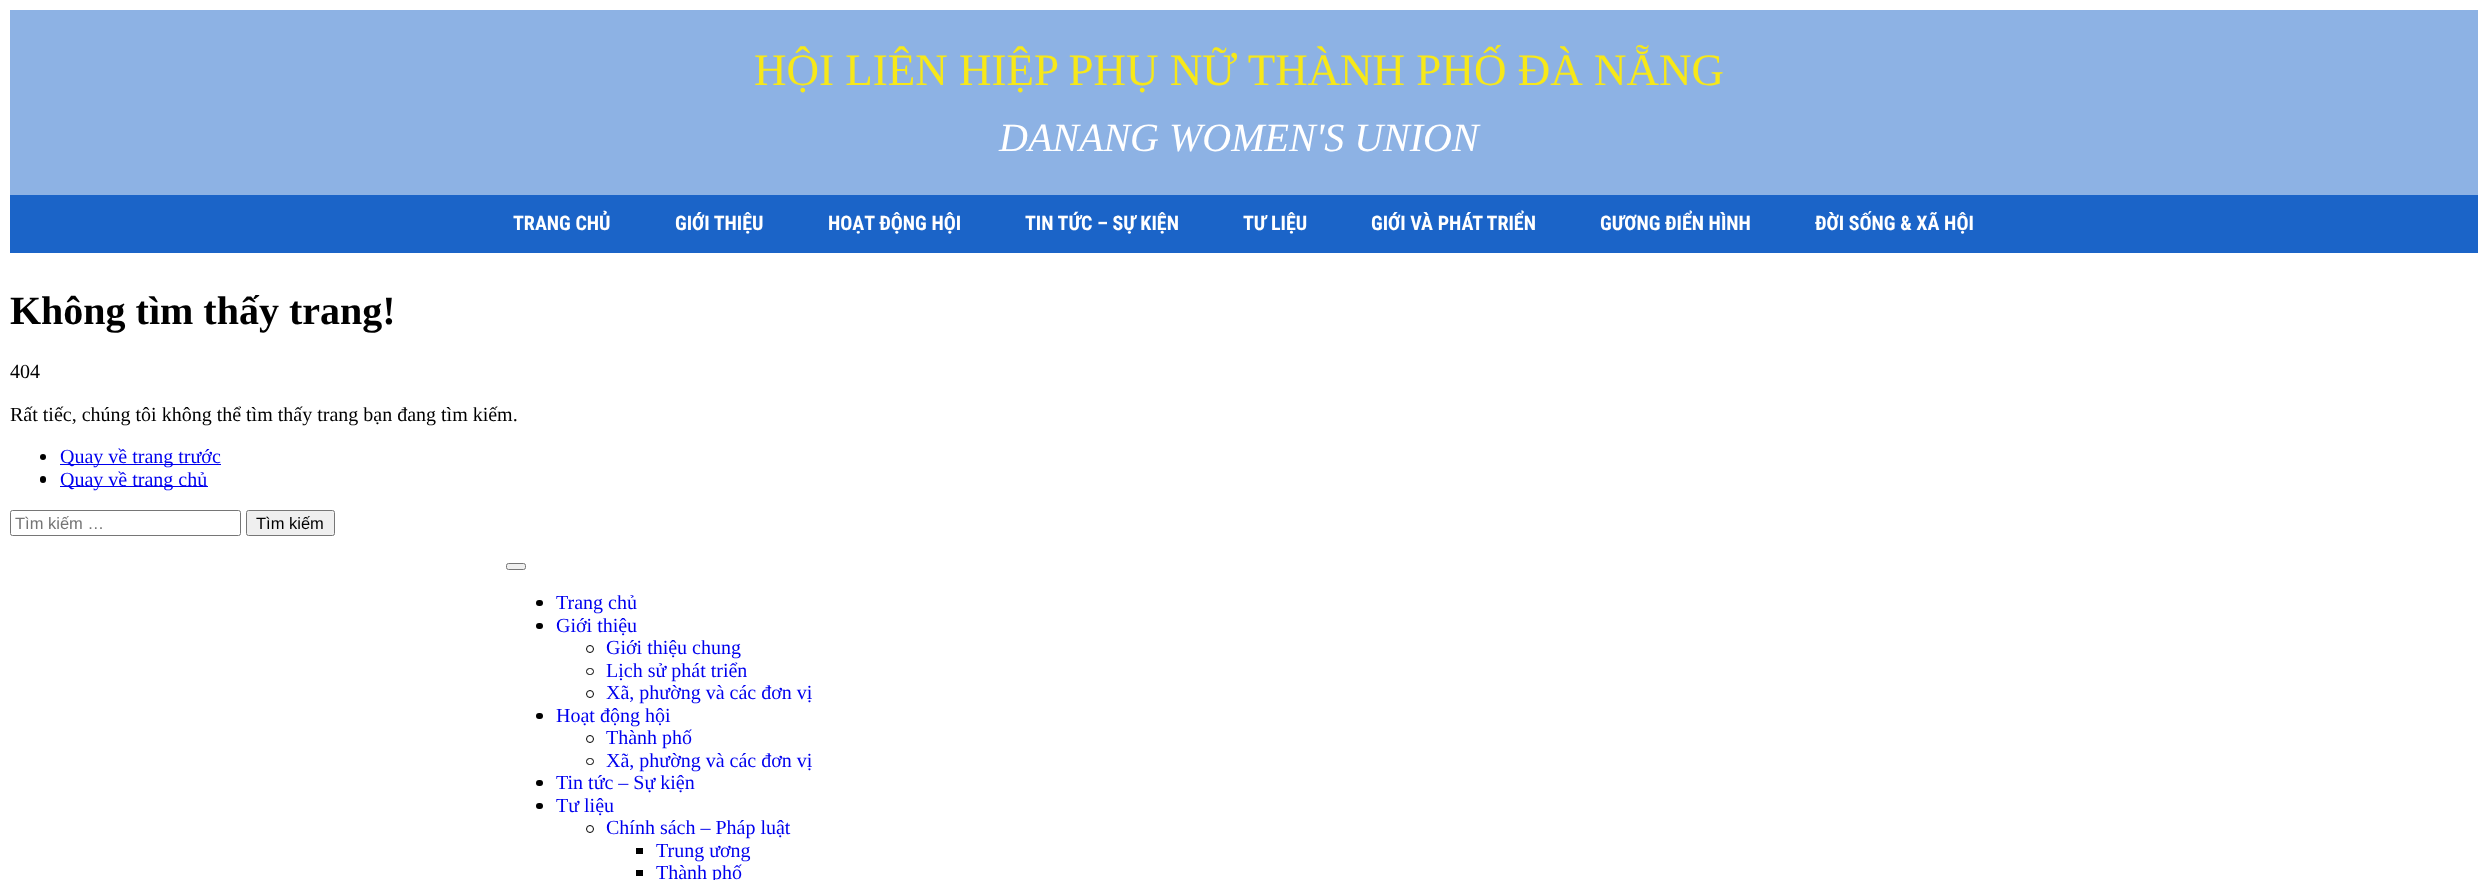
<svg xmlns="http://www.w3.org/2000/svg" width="2487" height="880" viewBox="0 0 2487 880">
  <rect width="100%" height="100%" fill="#fff"/>
  <path d="M10 10h2468v185H10z" fill="#8db2e4"/>
  <path d="M10 195h2468v58H10z" fill="#1b64c8"/>
  <circle cx="43" cy="457" r="3" fill="#000"/>
  <path d="M60 464h161v1H60z" fill="#00e"/>
  <rect x="40" y="476" width="6" height="7" rx="3" fill="#000"/>
  <path d="M60 486h148v1H60z" fill="#00e"/>
  <rect x="10.5" y="510.5" width="230" height="25" rx="2" fill="none" stroke="#767676"/>
  <rect x="246.5" y="510.5" width="88" height="25" rx="2" fill="#efefef" stroke="#767676"/>
  <rect x="506.5" y="563.5" width="19" height="6" rx="2" fill="#efefef" stroke="#767676"/>
  <rect x="536" y="600" width="7" height="6" rx="3" fill="#000"/>
  <rect x="536" y="623" width="7" height="6" rx="3" fill="#000"/>
  <circle cx="590" cy="649" r="3.5" fill="none" stroke="#000"/>
  <rect x="586.5" y="668.5" width="7" height="6" rx="3" fill="none" stroke="#000"/>
  <circle cx="590" cy="694" r="3.5" fill="none" stroke="#000"/>
  <rect x="536" y="713" width="7" height="6" rx="3" fill="#000"/>
  <circle cx="590" cy="739" r="3.5" fill="none" stroke="#000"/>
  <rect x="586.5" y="758.5" width="7" height="6" rx="3" fill="none" stroke="#000"/>
  <rect x="536" y="780" width="7" height="6" rx="3" fill="#000"/>
  <rect x="536" y="803" width="7" height="6" rx="3" fill="#000"/>
  <circle cx="590" cy="829" r="3.5" fill="none" stroke="#000"/>
  <path d="M636 848h7v6H636z" fill="#000"/>
  <path d="M636 870h7v6H636z" fill="#000"/>
  <text x="754" y="85" font-family="Liberation Serif" font-size="45" fill="#f7e819">HỘI LIÊN HIỆP PHỤ NỮ THÀNH PHỐ ĐÀ NẴNG</text>
  <text x="999" y="151" font-family="Liberation Serif" font-size="40" font-style="italic" fill="#fff">DANANG WOMEN'S UNION</text>
  <g font-family="Roboto Condensed" font-size="20" font-weight="bold" fill="#fff">
    <text x="513" y="230">TRANG CHỦ</text>
    <text x="675" y="230">GIỚI THIỆU</text>
    <text x="828" y="230">HOẠT ĐỘNG HỘI</text>
    <text x="1025" y="230">TIN TỨC – SỰ KIỆN</text>
    <text x="1243" y="230">TƯ LIỆU</text>
    <text x="1371" y="230">GIỚI VÀ PHÁT TRIỂN</text>
    <text x="1600" y="230">GƯƠNG ĐIỂN HÌNH</text>
    <text x="1815" y="230">ĐỜI SỐNG &amp; XÃ HỘI</text>
  </g>
  <text x="10" y="324" font-family="Liberation Serif" font-size="40" font-weight="bold" fill="#000">Không tìm thấy trang!</text>
  <g font-family="Liberation Serif" font-size="20" fill="#000">
    <text x="10" y="378">404</text>
    <text x="10" y="421">Rất tiếc, chúng tôi không thể tìm thấy trang bạn đang tìm kiếm.</text>
  </g>
  <g font-family="Liberation Serif" font-size="20" fill="#00e">
    <text x="60" y="463">Quay về trang trước</text>
    <text x="60" y="486">Quay về trang chủ</text>
  </g>
  <text x="15" y="529" font-family="Liberation Sans" font-size="16.5" fill="#757575">Tìm kiếm …</text>
  <text x="256" y="529" font-family="Liberation Sans" font-size="16.5" fill="#000">Tìm kiếm</text>
  <g font-family="Liberation Serif" font-size="20" fill="#00e">
    <text x="556" y="609">Trang chủ</text>
    <text x="556" y="632">Giới thiệu</text>
    <text x="606" y="654">Giới thiệu chung</text>
    <text x="606" y="677">Lịch sử phát triển</text>
    <text x="606" y="699">Xã, phường và các đơn vị</text>
    <text x="556" y="722">Hoạt động hội</text>
    <text x="606" y="744">Thành phố</text>
    <text x="606" y="767">Xã, phường và các đơn vị</text>
    <text x="556" y="789">Tin tức – Sự kiện</text>
    <text x="556" y="812">Tư liệu</text>
    <text x="606" y="834">Chính sách – Pháp luật</text>
    <text x="656" y="857">Trung ương</text>
    <text x="656" y="879">Thành phố</text>
  </g>
</svg>
